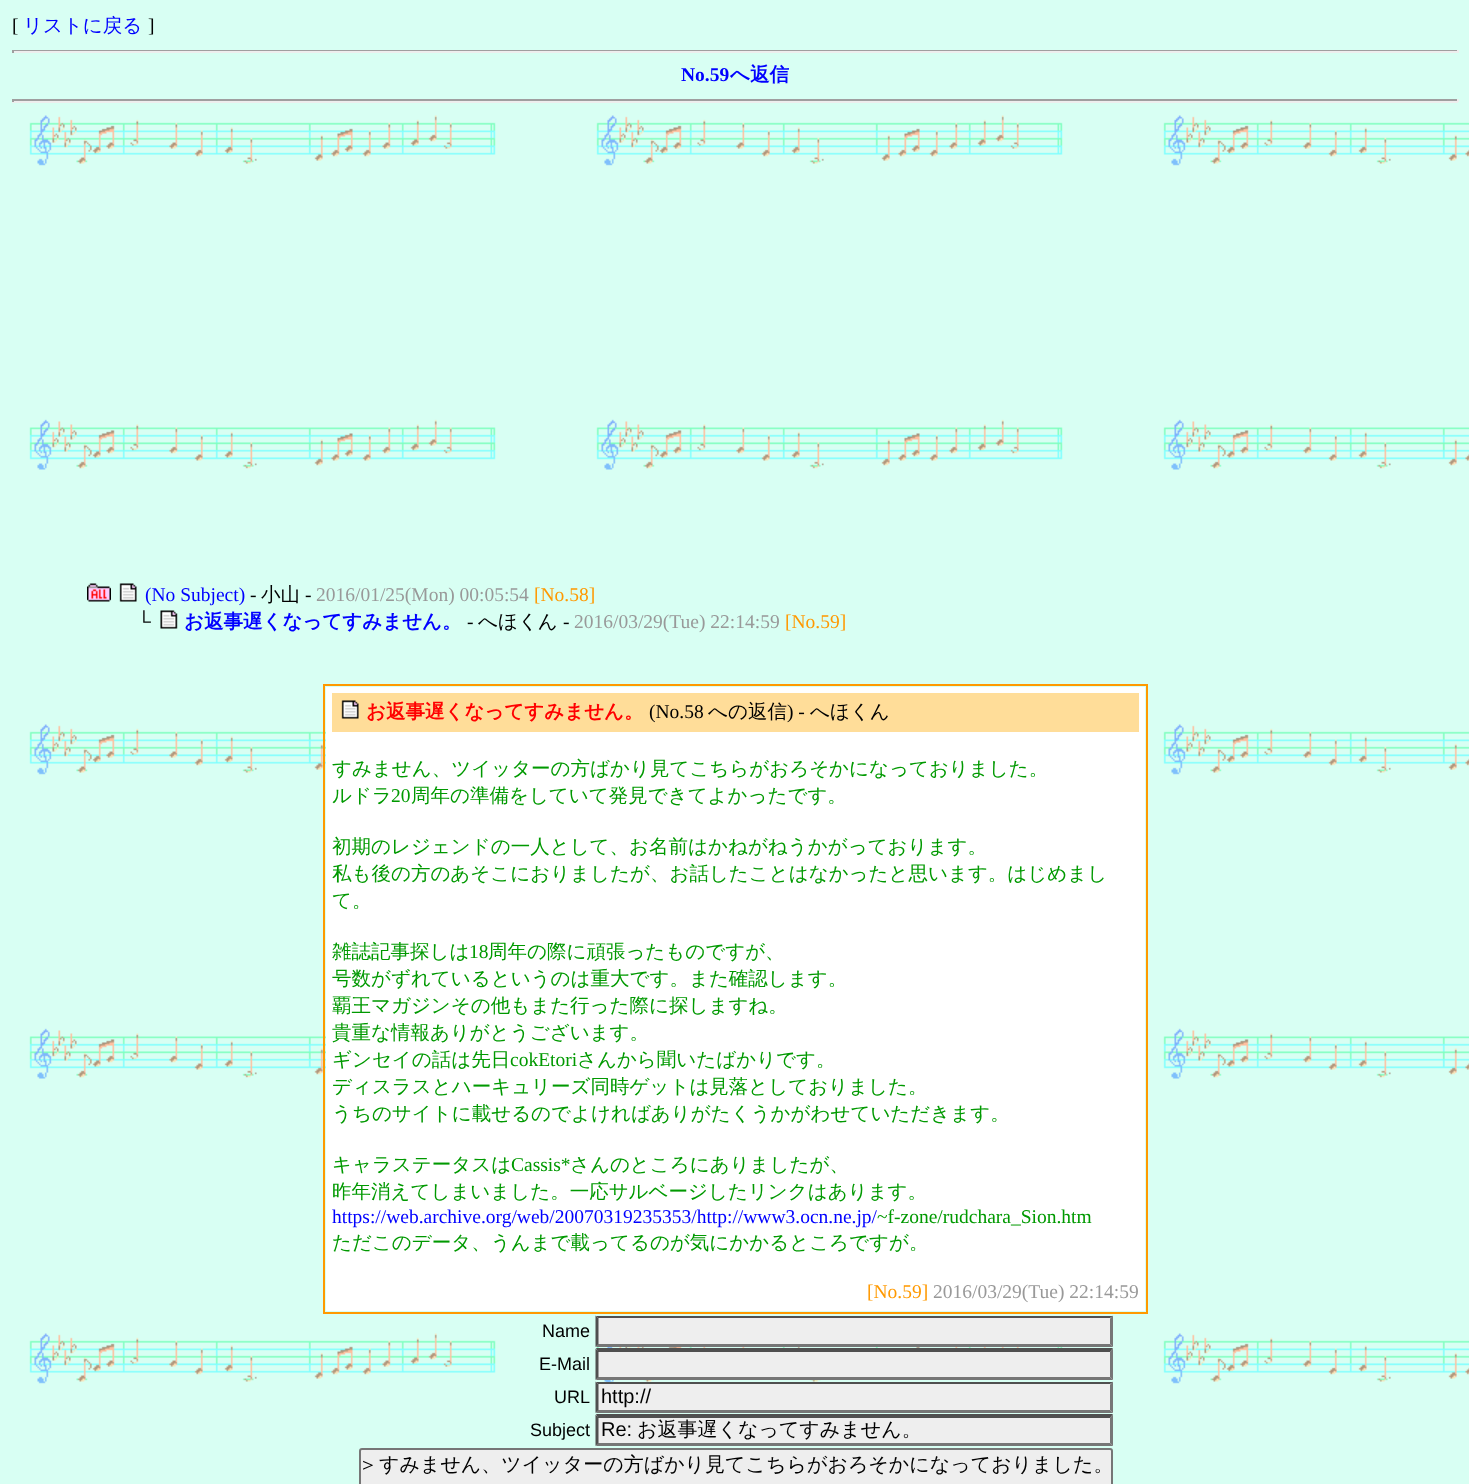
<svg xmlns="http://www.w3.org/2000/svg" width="1469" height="1484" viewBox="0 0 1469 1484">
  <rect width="100%" height="100%" fill="#fff"/>
  <image x="0" y="0" width="1469" height="1484" href="img/1.png"/>
  <path d="M12 50h1446v1H12z" fill="#9f9f9f"/>
  <path d="M1457 50h2v3H1457z" fill="#eee"/>
  <path d="M12 51h1446v2H12z" fill="#eee"/>
  <path d="M12 50h2v3H12z" fill="#9f9f9f"/>
  <path d="M12 99h1446v2H12z" fill="#9f9f9f"/>
  <path d="M1457 99h2v3H1457z" fill="#eee"/>
  <path d="M12 101h1446v2H12z" fill="#eee"/>
  <path d="M12 99h2v3H12z" fill="#9f9f9f"/>
  <image x="87" y="583" width="24" height="19" href="img/2.png"/>
  <image x="119" y="583" width="18" height="19" href="img/3.png"/>
  <image x="160" y="610" width="18" height="19" href="img/4.png"/>
  <path d="M324 685h823v628H324z" fill="none" stroke="#f90" stroke-width="2"/>
  <path d="M326 687h819v624H326z" fill="#fff"/>
  <path d="M332 693h807v39H332z" fill="#fd9"/>
  <image x="341" y="700" width="18" height="19" href="img/5.png"/>
  <path d="M596 1316h517v31H596z" fill="#eee"/>
  <path d="M596 1316H1113L1110 1318H598Z" fill="#4f4f4f"/>
  <path d="M1113 1315.5V1347L1110 1344V1318.5Z" fill="#767676"/>
  <path d="M1113 1347H596L598 1344H1110Z" fill="#767676"/>
  <path d="M595.5 1347V1315.5L598.5 1318.5V1344Z" fill="#4f4f4f"/>
  <path d="M596 1349h517v31H596z" fill="#eee"/>
  <path d="M596 1348H1113L1110 1352H598Z" fill="#4f4f4f"/>
  <path d="M1113 1348.5V1380L1110 1377V1351.5Z" fill="#767676"/>
  <path d="M1113 1380H596L598 1377H1110Z" fill="#767676"/>
  <path d="M595.5 1380V1348.5L598.5 1351.5V1377Z" fill="#4f4f4f"/>
  <path d="M596 1382h517v31H596z" fill="#eee"/>
  <path d="M596 1382H1113L1110 1384H598Z" fill="#4f4f4f"/>
  <path d="M1113 1381.5V1413L1110 1410V1384.5Z" fill="#767676"/>
  <path d="M1113 1413H596L598 1410H1110Z" fill="#767676"/>
  <path d="M595.5 1413V1381.5L598.5 1384.5V1410Z" fill="#4f4f4f"/>
  <path d="M596 1415h517v31H596z" fill="#eee"/>
  <path d="M596 1414H1113L1110 1418H598Z" fill="#4f4f4f"/>
  <path d="M1113 1414.5V1446L1110 1443V1417.5Z" fill="#767676"/>
  <path d="M1113 1446H596L598 1443H1110Z" fill="#767676"/>
  <path d="M595.5 1446V1414.5L598.5 1417.5V1443Z" fill="#4f4f4f"/>
  <rect x="360" y="1449" width="752" height="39" rx="2" fill="#eee" stroke="#767676" stroke-width="2"/>
  <text x="12" y="32" font-family="Liberation Serif" font-size="19.5" fill="#000">[</text>
  <text x="23" y="32" font-family="WenQuanYi Zen Hei" font-size="19.5" font-weight="500" fill="#00f">リストに戻る</text>
  <text x="148" y="32" font-family="Liberation Serif" font-size="19.5" fill="#000">]</text>
  <text x="681" y="81" font-family="Liberation Serif" font-size="19.5" font-weight="bold" fill="#00f">No.59</text>
  <text x="730" y="81" font-family="WenQuanYi Zen Hei" font-size="19.5" font-weight="bold" fill="#00f">へ返信</text>
  <text x="145" y="601" font-family="Liberation Serif" font-size="19.5" fill="#00f">(No Subject)</text>
  <text x="250" y="601" font-family="Liberation Serif" font-size="19.5" fill="#000">-</text>
  <text x="261" y="601" font-family="WenQuanYi Zen Hei" font-size="19.5" font-weight="500" fill="#000">小山</text>
  <text x="305" y="601" font-family="Liberation Serif" font-size="19.5" fill="#000">-</text>
  <text x="316" y="601" font-family="Liberation Serif" font-size="19.5" fill="#999">2016/01/25(Mon) 00:05:54</text>
  <text x="534" y="601" font-family="Liberation Serif" font-size="19.5" fill="#f90">[No.58]</text>
  <text x="137" y="628" font-family="Liberation Serif" font-size="19.5" fill="#000">└</text>
  <text x="184" y="628" font-family="WenQuanYi Zen Hei" font-size="19.5" font-weight="bold" fill="#00f">お返事遅くなってすみません。</text>
  <text x="467" y="628" font-family="Liberation Serif" font-size="19.5" fill="#000">-</text>
  <text x="478" y="628" font-family="WenQuanYi Zen Hei" font-size="19.5" font-weight="500" fill="#000">へほくん</text>
  <text x="563" y="628" font-family="Liberation Serif" font-size="19.5" fill="#000">-</text>
  <text x="574" y="628" font-family="Liberation Serif" font-size="19.5" fill="#999">2016/03/29(Tue) 22:14:59</text>
  <text x="785" y="628" font-family="Liberation Serif" font-size="19.5" fill="#f90">[No.59]</text>
  <text x="366" y="718" font-family="WenQuanYi Zen Hei" font-size="19.5" font-weight="bold" fill="#f00">お返事遅くなってすみません。</text>
  <text x="649" y="718" font-family="Liberation Serif" font-size="19.5" fill="#000">(No.58</text>
  <text x="708" y="718" font-family="WenQuanYi Zen Hei" font-size="19.5" font-weight="500" fill="#000">への返信</text>
  <text x="787" y="718" font-family="Liberation Serif" font-size="19.5" fill="#000">) -</text>
  <text x="810" y="718" font-family="WenQuanYi Zen Hei" font-size="19.5" font-weight="500" fill="#000">へほくん</text>
  <g font-family="WenQuanYi Zen Hei" font-size="19.5" font-weight="500" fill="#090">
    <text x="332" y="775">すみません、ツイッターの方ばかり見てこちらがおろそかになっておりました。</text>
    <text x="332" y="802">ルドラ</text>
  </g>
  <text x="391" y="802" font-family="Liberation Serif" font-size="19.5" fill="#090">20</text>
  <g font-family="WenQuanYi Zen Hei" font-size="19.5" font-weight="500" fill="#090">
    <text x="411" y="802">周年の準備をしていて発見できてよかったです。</text>
    <text x="332" y="853">初期のレジェンドの一人として、お名前はかねがねうかがっております。</text>
    <text x="332" y="880">私も後の方のあそこにおりましたが、お話したことはなかったと思います。はじめまし</text>
    <text x="332" y="907">て。</text>
    <text x="332" y="958">雑誌記事探しは</text>
  </g>
  <text x="469" y="958" font-family="Liberation Serif" font-size="19.5" fill="#090">18</text>
  <g font-family="WenQuanYi Zen Hei" font-size="19.5" font-weight="500" fill="#090">
    <text x="488" y="958">周年の際に頑張ったものですが、</text>
    <text x="332" y="985">号数がずれているというのは重大です。また確認します。</text>
    <text x="332" y="1012">覇王マガジンその他もまた行った際に探しますね。</text>
    <text x="332" y="1039">貴重な情報ありがとうございます。</text>
    <text x="332" y="1066">ギンセイの話は先日</text>
  </g>
  <text x="510" y="1066" font-family="Liberation Serif" font-size="19.5" fill="#090">cokEtori</text>
  <g font-family="WenQuanYi Zen Hei" font-size="19.5" font-weight="500" fill="#090">
    <text x="577" y="1066">さんから聞いたばかりです。</text>
    <text x="332" y="1093">ディスラスとハーキュリーズ同時ゲットは見落としておりました。</text>
    <text x="332" y="1120">うちのサイトに載せるのでよければありがたくうかがわせていただきます。</text>
    <text x="332" y="1171">キャラステータスは</text>
  </g>
  <text x="511" y="1171" font-family="Liberation Serif" font-size="19.5" fill="#090">Cassis*</text>
  <g font-family="WenQuanYi Zen Hei" font-size="19.5" font-weight="500" fill="#090">
    <text x="570" y="1171">さんのところにありましたが、</text>
    <text x="332" y="1198">昨年消えてしまいました。一応サルベージしたリンクはあります。</text>
  </g>
  <text x="332" y="1223" font-family="Liberation Serif" font-size="19.5" fill="#00f">https://web.archive.org/web/20070319235353/http://www3.ocn.ne.jp/</text>
  <text x="877" y="1223" font-family="Liberation Serif" font-size="19.5" fill="#090">~f-zone/rudchara_Sion.htm</text>
  <text x="332" y="1249" font-family="WenQuanYi Zen Hei" font-size="19.5" font-weight="500" fill="#090">ただこのデータ、うんまで載ってるのが気にかかるところですが。</text>
  <text x="867" y="1298" font-family="Liberation Serif" font-size="19.5" fill="#f90">[No.59]</text>
  <text x="933" y="1298" font-family="Liberation Serif" font-size="19.5" fill="#999">2016/03/29(Tue) 22:14:59</text>
  <g font-family="Liberation Sans" font-size="18" fill="#000">
    <text x="542" y="1337">Name</text>
    <text x="539" y="1370">E-Mail</text>
    <text x="554" y="1403">URL</text>
  </g>
  <text x="601" y="1403" font-family="Liberation Sans" font-size="20" fill="#000">http://</text>
  <text x="530" y="1436" font-family="Liberation Sans" font-size="18" fill="#000">Subject</text>
  <text x="601" y="1436" font-family="Liberation Sans" font-size="20" fill="#000">Re:</text>
  <g font-family="WenQuanYi Zen Hei" font-size="20" font-weight="500" fill="#000">
    <text x="637" y="1436">お返事遅くなってすみません。</text>
    <text x="362" y="1471" word-spacing="-1">&gt; すみません、ツイッターの方ばかり見てこちらがおろそかになっておりました。</text>
  </g>
</svg>
